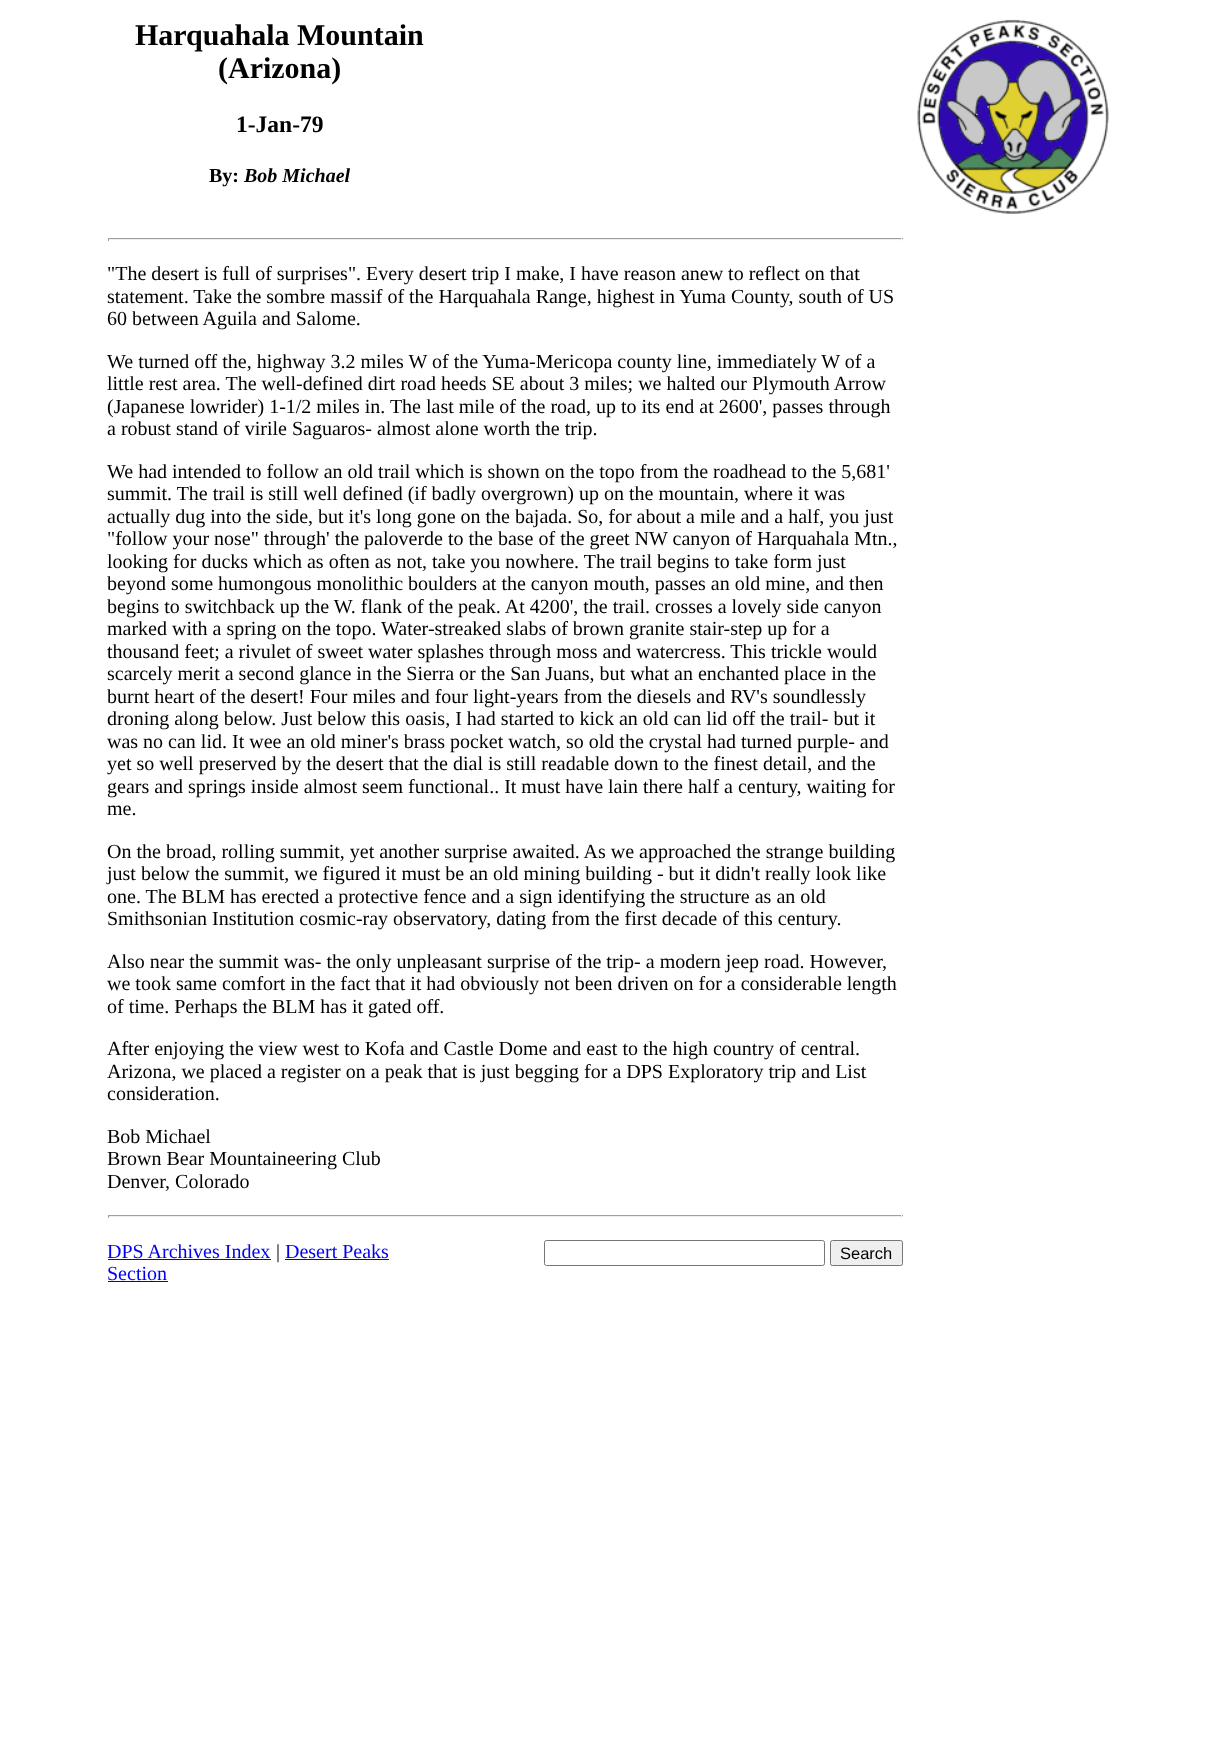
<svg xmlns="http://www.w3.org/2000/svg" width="1218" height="1753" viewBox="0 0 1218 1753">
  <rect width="100%" height="100%" fill="#fff"/>
  <image x="917" y="19" width="192" height="195" href="img/1.png"/>
  <path d="M108 238h795v1H108z" fill="#9f9f9f"/>
  <path d="M901 238h1v3H901z" fill="#eee"/>
  <path d="M108 239h795v1H108z" fill="#eee"/>
  <path d="M108 238h1v3H108z" fill="#9f9f9f"/>
  <path d="M108 1215h795v1H108z" fill="#9f9f9f"/>
  <path d="M901 1215h1v3H901z" fill="#eee"/>
  <path d="M108 1216h795v1H108z" fill="#eee"/>
  <path d="M108 1215h1v3H108z" fill="#9f9f9f"/>
  <path d="M108 1259h163v1H108z" fill="#00e"/>
  <path d="M285 1259h104v1H285z" fill="#00e"/>
  <path d="M108 1281h60v1H108z" fill="#00e"/>
  <rect x="544.5" y="1240.5" width="280" height="25" rx="2" fill="none" stroke="#767676"/>
  <rect x="830.5" y="1240.5" width="72" height="25" rx="2" fill="#efefef" stroke="#767676"/>
  <g font-family="Liberation Serif" font-size="30" font-weight="bold" fill="#000">
    <text x="135" y="45">Harquahala Mountain</text>
    <text x="218" y="78">(Arizona)</text>
  </g>
  <text x="236" y="132" font-family="Liberation Serif" font-size="23.5" font-weight="bold" fill="#000">1-Jan-79</text>
  <text x="209" y="182" font-family="Liberation Serif" font-size="20" font-weight="bold" fill="#000">By:</text>
  <text x="244" y="182" font-family="Liberation Serif" font-size="20" font-weight="bold" font-style="italic" fill="#000">Bob Michael</text>
  <g font-family="Liberation Serif" font-size="20" fill="#000">
    <text x="107" y="280">"The desert is full of surprises". Every desert trip I make, I have reason anew to reflect on that</text>
    <text x="107" y="303">statement. Take the sombre massif of the Harquahala Range, highest in Yuma County, south of US</text>
    <text x="107" y="325">60 between Aguila and Salome.</text>
    <text x="107" y="368">We turned off the, highway 3.2 miles W of the Yuma-Mericopa county line, immediately W of a</text>
    <text x="107" y="390">little rest area. The well-defined dirt road heeds SE about 3 miles; we halted our Plymouth Arrow</text>
    <text x="107" y="413">(Japanese lowrider) 1-1/2 miles in. The last mile of the road, up to its end at 2600', passes through</text>
    <text x="107" y="435">a robust stand of virile Saguaros- almost alone worth the trip.</text>
    <text x="107" y="478">We had intended to follow an old trail which is shown on the topo from the roadhead to the 5,681'</text>
    <text x="107" y="500">summit. The trail is still well defined (if badly overgrown) up on the mountain, where it was</text>
    <text x="107" y="523">actually dug into the side, but it's long gone on the bajada. So, for about a mile and a half, you just</text>
    <text x="107" y="545">"follow your nose" through' the paloverde to the base of the greet NW canyon of Harquahala Mtn.,</text>
    <text x="107" y="568">looking for ducks which as often as not, take you nowhere. The trail begins to take form just</text>
    <text x="107" y="590">beyond some humongous monolithic boulders at the canyon mouth, passes an old mine, and then</text>
    <text x="107" y="613">begins to switchback up the W. flank of the peak. At 4200', the trail. crosses a lovely side canyon</text>
    <text x="107" y="635">marked with a spring on the topo. Water-streaked slabs of brown granite stair-step up for a</text>
    <text x="107" y="658">thousand feet; a rivulet of sweet water splashes through moss and watercress. This trickle would</text>
    <text x="107" y="680">scarcely merit a second glance in the Sierra or the San Juans, but what an enchanted place in the</text>
    <text x="107" y="703">burnt heart of the desert! Four miles and four light-years from the diesels and RV's soundlessly</text>
    <text x="107" y="725">droning along below. Just below this oasis, I had started to kick an old can lid off the trail- but it</text>
    <text x="107" y="748">was no can lid. It wee an old miner's brass pocket watch, so old the crystal had turned purple- and</text>
    <text x="107" y="770">yet so well preserved by the desert that the dial is still readable down to the finest detail, and the</text>
    <text x="107" y="793">gears and springs inside almost seem functional.. It must have lain there half a century, waiting for</text>
    <text x="107" y="815">me.</text>
    <text x="107" y="858">On the broad, rolling summit, yet another surprise awaited. As we approached the strange building</text>
    <text x="107" y="880">just below the summit, we figured it must be an old mining building - but it didn't really look like</text>
    <text x="107" y="903">one. The BLM has erected a protective fence and a sign identifying the structure as an old</text>
    <text x="107" y="925">Smithsonian Institution cosmic-ray observatory, dating from the first decade of this century.</text>
    <text x="107" y="968">Also near the summit was- the only unpleasant surprise of the trip- a modern jeep road. However,</text>
    <text x="107" y="990">we took same comfort in the fact that it had obviously not been driven on for a considerable length</text>
    <text x="107" y="1013">of time. Perhaps the BLM has it gated off.</text>
    <text x="107" y="1055">After enjoying the view west to Kofa and Castle Dome and east to the high country of central.</text>
    <text x="107" y="1078">Arizona, we placed a register on a peak that is just begging for a DPS Exploratory trip and List</text>
    <text x="107" y="1100">consideration.</text>
    <text x="107" y="1143">Bob Michael</text>
    <text x="107" y="1165">Brown Bear Mountaineering Club</text>
    <text x="107" y="1188">Denver, Colorado</text>
  </g>
  <text x="107" y="1258" font-family="Liberation Serif" font-size="20" fill="#00e">DPS Archives Index</text>
  <text x="276" y="1258" font-family="Liberation Serif" font-size="20" fill="#000">|</text>
  <g font-family="Liberation Serif" font-size="20" fill="#00e">
    <text x="285" y="1258">Desert Peaks</text>
    <text x="107" y="1280">Section</text>
  </g>
  <text x="840" y="1259" font-family="Liberation Sans" font-size="16.5" fill="#000">Search</text>
</svg>
